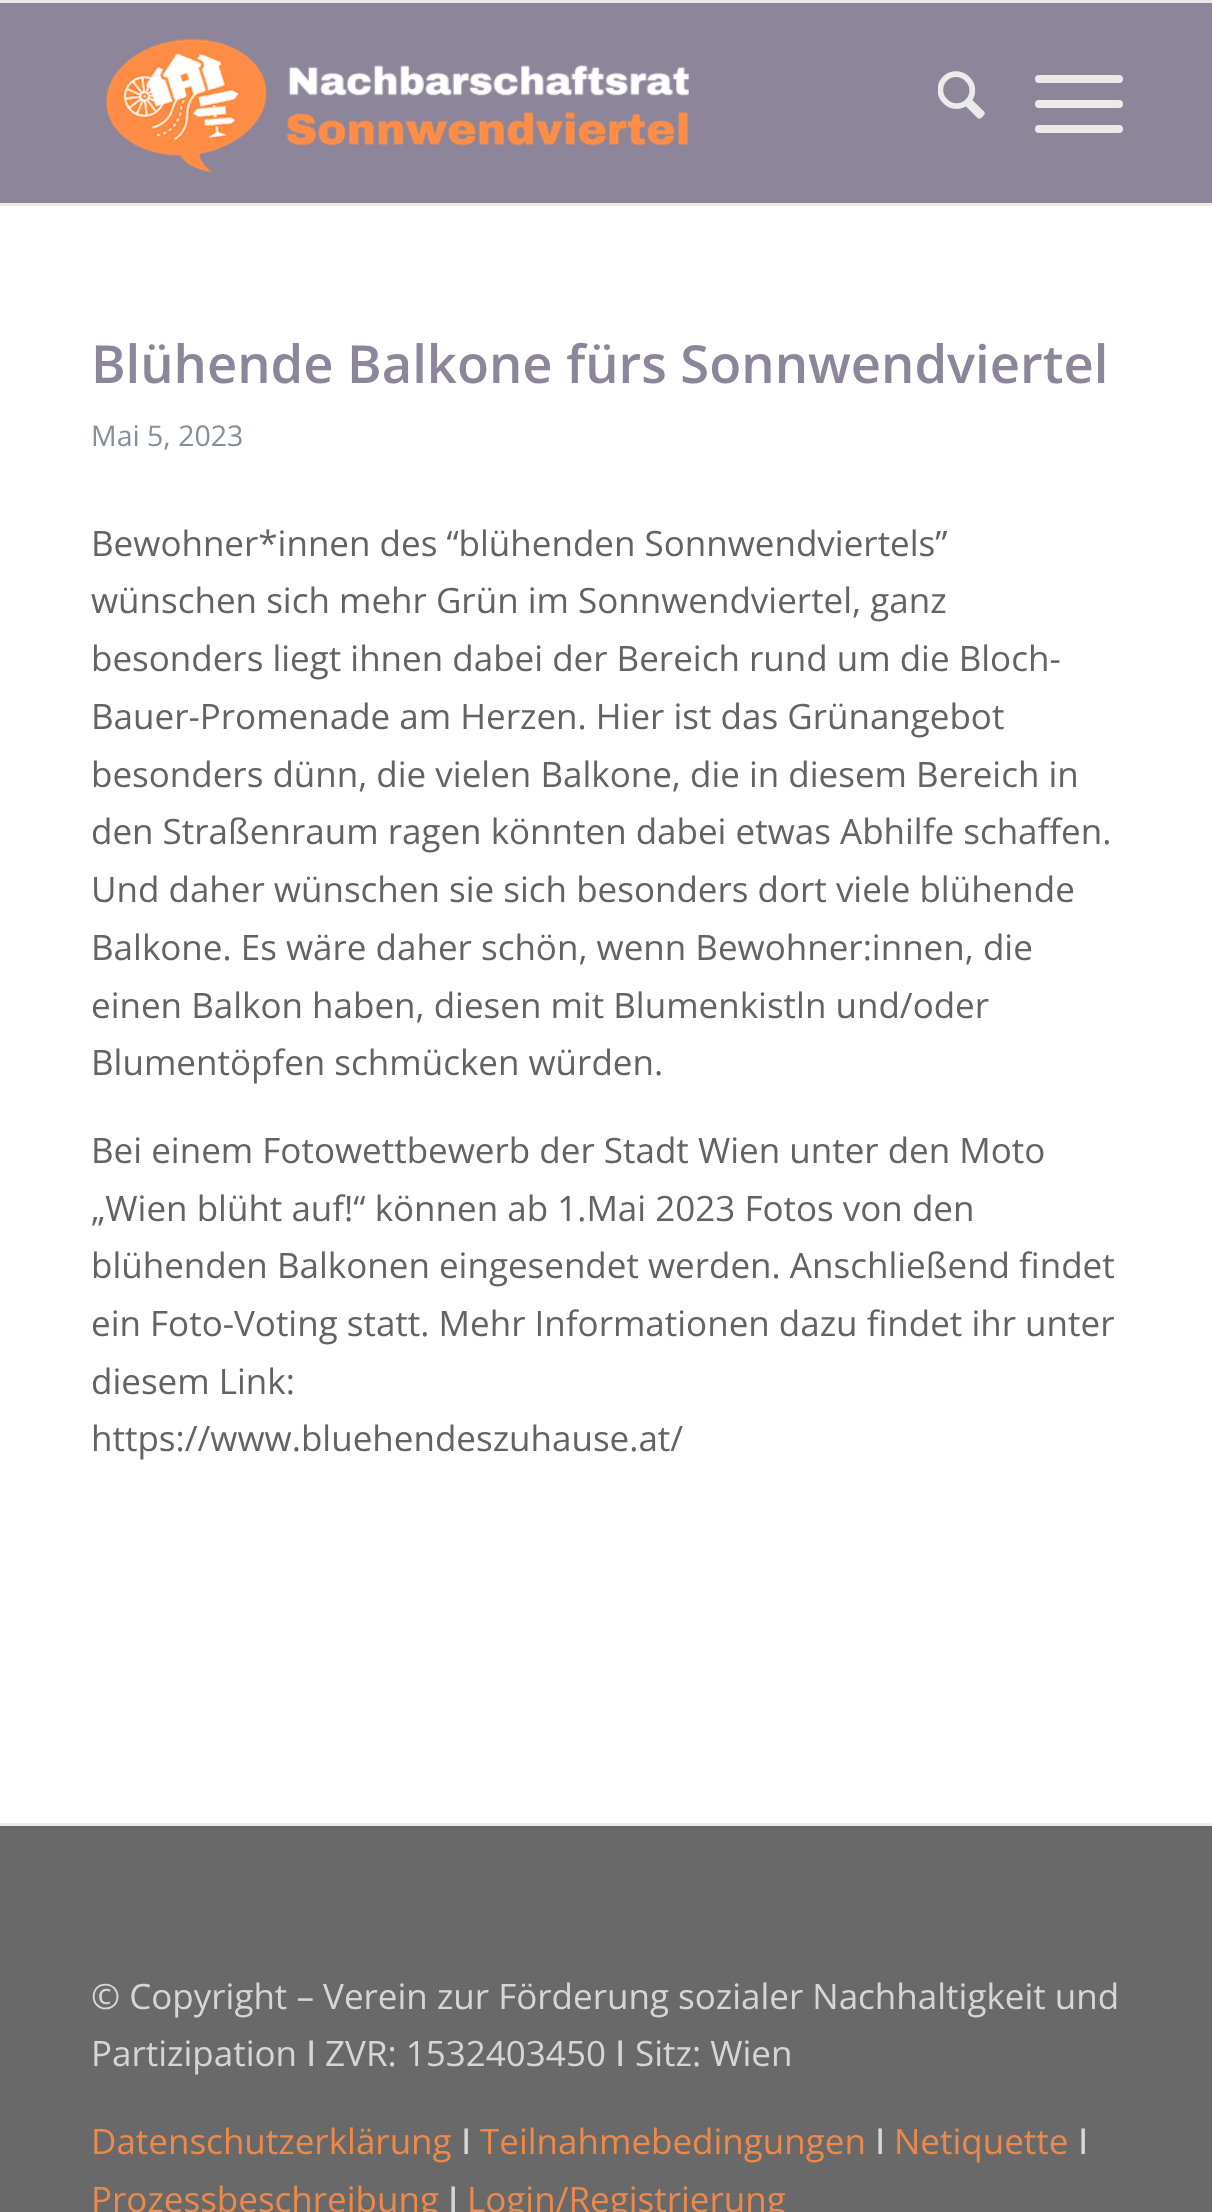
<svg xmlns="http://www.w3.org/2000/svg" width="1212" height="2212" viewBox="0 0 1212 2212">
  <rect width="100%" height="100%" fill="#fff"/>
  <path d="M0 0h1212v3H0z" fill="#ebebeb"/>
  <path d="M0 203h1212v3H0z" fill="#ebebeb"/>
  <path d="M0 3h1212v200H0z" fill="#8d859a"/>
  <image x="106" y="38" width="583" height="135" href="img/1.png"/>
  <image x="938" y="71" width="47" height="48" href="img/2.png"/>
  <rect x="1035" y="100" width="88" height="8" rx="4" fill="#ebebeb"/>
  <rect x="1035" y="75" width="88" height="8" rx="4" fill="#ebebeb"/>
  <rect x="1035" y="125" width="88" height="8" rx="4" fill="#ebebeb"/>
  <path d="M0 1826h1212v386H0z" fill="#696969"/>
  <path d="M0 1823h1212v3H0z" fill="#ebebeb"/>
  <text x="91" y="383" font-family="Open Sans" font-size="52.5" font-weight="600" fill="#8d859a">Blühende Balkone fürs Sonnwendviertel</text>
  <text x="91" y="446" font-family="Open Sans" font-size="28.5" fill="#858f9a">Mai 5, 2023</text>
  <g font-family="Open Sans" font-size="35" fill="#636363">
    <text x="91" y="556">Bewohner*innen des “blühenden Sonnwendviertels”</text>
    <text x="91" y="613">wünschen sich mehr Grün im Sonnwendviertel, ganz</text>
    <text x="91" y="671">besonders liegt ihnen dabei der Bereich rund um die Bloch-</text>
    <text x="91" y="729">Bauer-Promenade am Herzen. Hier ist das Grünangebot</text>
    <text x="91" y="787">besonders dünn, die vielen Balkone, die in diesem Bereich in</text>
    <text x="91" y="844">den Straßenraum ragen könnten dabei etwas Abhilfe schaffen.</text>
    <text x="91" y="902">Und daher wünschen sie sich besonders dort viele blühende</text>
    <text x="91" y="960">Balkone. Es wäre daher schön, wenn Bewohner:innen, die</text>
    <text x="91" y="1018">einen Balkon haben, diesen mit Blumenkistln und/oder</text>
    <text x="91" y="1075">Blumentöpfen schmücken würden.</text>
    <text x="91" y="1163">Bei einem Fotowettbewerb der Stadt Wien unter den Moto</text>
    <text x="91" y="1221">„Wien blüht auf!“ können ab 1.Mai 2023 Fotos von den</text>
    <text x="91" y="1278">blühenden Balkonen eingesendet werden. Anschließend findet</text>
    <text x="91" y="1336">ein Foto-Voting statt. Mehr Informationen dazu findet ihr unter</text>
    <text x="91" y="1394">diesem Link:</text>
    <text x="91" y="1451">https://www.bluehendeszuhause.at/</text>
  </g>
  <g font-family="Open Sans" font-size="35" fill="#d6d6d6">
    <text x="91" y="2009">© Copyright – Verein zur Förderung sozialer Nachhaltigkeit und</text>
    <text x="91" y="2066">Partizipation</text>
  </g>
  <text x="306" y="2066" font-family="DejaVu Sans" font-size="35" fill="#d6d6d6">Ⅰ</text>
  <text x="325" y="2066" font-family="Open Sans" font-size="35" fill="#d6d6d6">ZVR: 1532403450</text>
  <text x="615" y="2066" font-family="DejaVu Sans" font-size="35" fill="#d6d6d6">Ⅰ</text>
  <text x="635" y="2066" font-family="Open Sans" font-size="35" fill="#d6d6d6">Sitz: Wien</text>
  <text x="91" y="2154" font-family="Open Sans" font-size="35" fill="#ec894b">Datenschutzerklärung</text>
  <text x="461" y="2154" font-family="DejaVu Sans" font-size="35" fill="#d6d6d6">Ⅰ</text>
  <text x="480" y="2154" font-family="Open Sans" font-size="35" fill="#ec894b">Teilnahmebedingungen</text>
  <text x="875" y="2154" font-family="DejaVu Sans" font-size="35" fill="#d6d6d6">Ⅰ</text>
  <text x="894" y="2154" font-family="Open Sans" font-size="35" fill="#ec894b">Netiquette</text>
  <text x="1078" y="2154" font-family="DejaVu Sans" font-size="35" fill="#d6d6d6">Ⅰ</text>
  <text x="91" y="2212" font-family="Open Sans" font-size="35" fill="#ec894b">Prozessbeschreibung</text>
  <text x="448" y="2212" font-family="DejaVu Sans" font-size="35" fill="#d6d6d6">Ⅰ</text>
  <text x="467" y="2212" font-family="Open Sans" font-size="35" fill="#ec894b">Login/Registrierung</text>
</svg>
